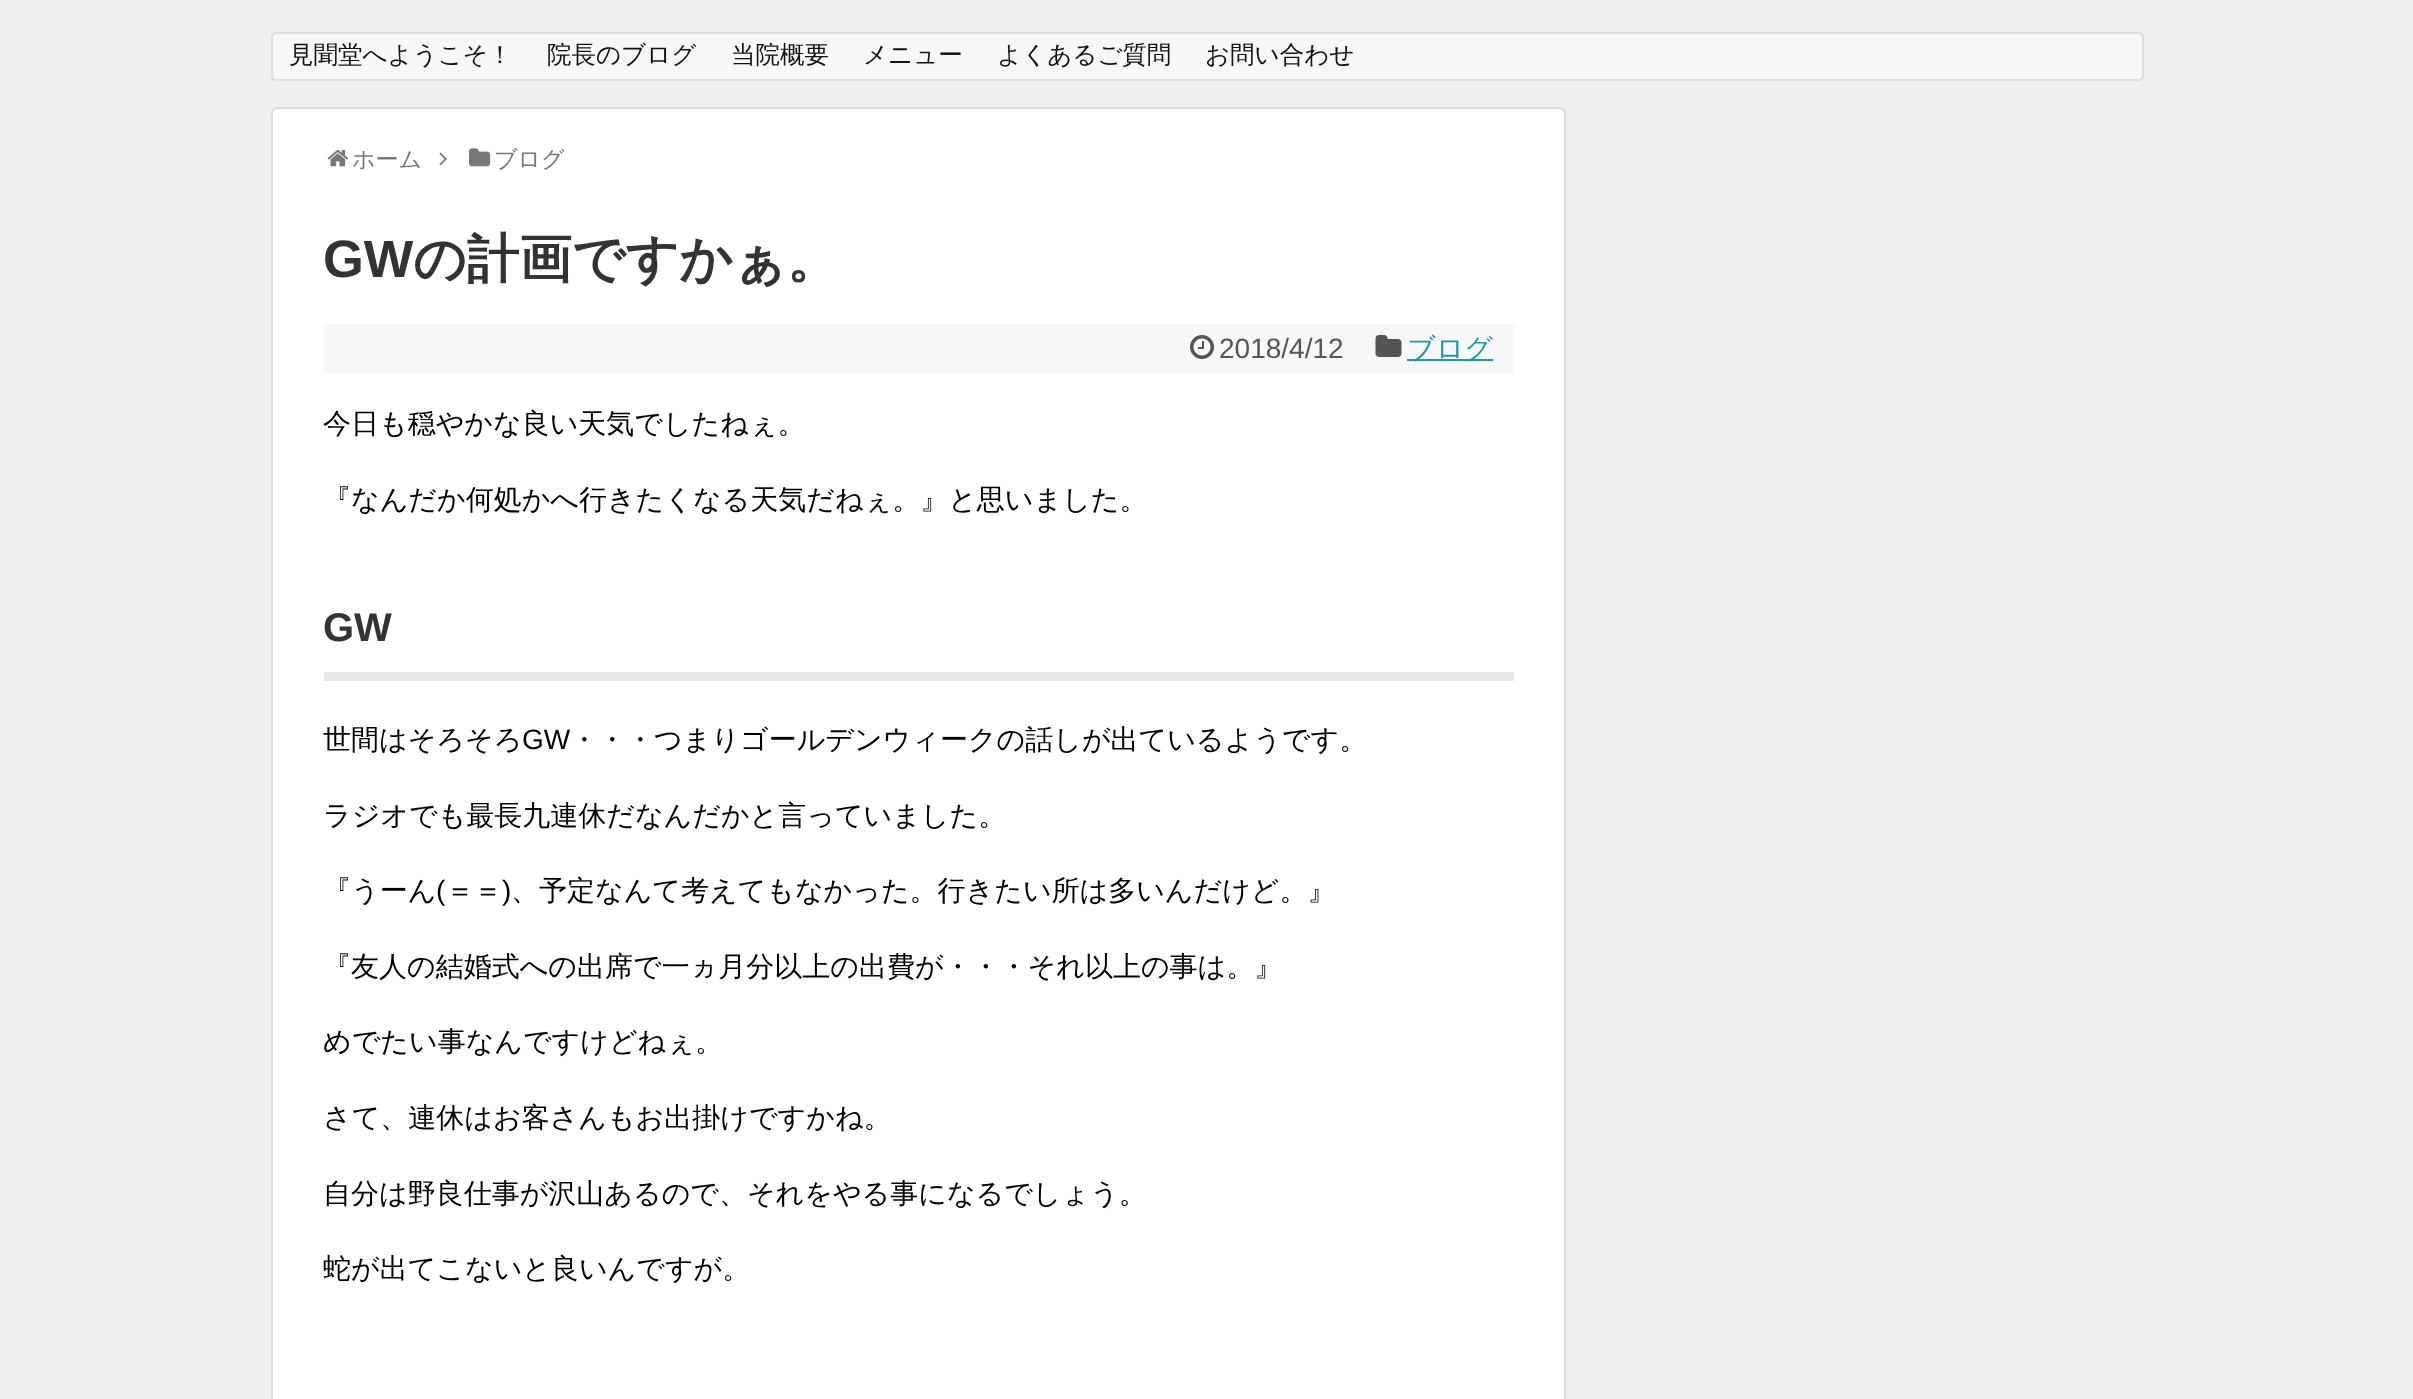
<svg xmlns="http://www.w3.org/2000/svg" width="2413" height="1399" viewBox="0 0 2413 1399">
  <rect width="100%" height="100%" fill="#efefef"/>
  <rect x="272" y="33" width="1871" height="47" rx="4" fill="#f7f7f7" stroke="#ddd" stroke-width="2"/>
  <rect x="272" y="108" width="1293" height="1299" rx="6" fill="#fff" stroke="#ddd" stroke-width="2"/>
  <image x="327" y="150" width="21" height="17" href="img/1.png"/>
  <image x="439" y="152" width="8" height="14" href="img/2.png"/>
  <image x="469" y="148" width="22" height="19" href="img/3.png"/>
  <path d="M324 324h1190v49H324z" fill="#f7f7f7"/>
  <image x="1190" y="335" width="24" height="24" href="img/4.png"/>
  <image x="1375" y="335" width="27" height="22" href="img/5.png"/>
  <path d="M1407 359h86v2H1407z" fill="#2098a8"/>
  <path d="M324 672h1190v9H324z" fill="#e7e7e7"/>
  <g font-family="WenQuanYi Zen Hei" font-size="24.5" font-weight="500" fill="#111">
    <text x="289" y="63">見聞堂へようこそ！</text>
    <text x="547" y="63">院長のブログ</text>
    <text x="731" y="63">当院概要</text>
    <text x="863" y="63">メニュー</text>
    <text x="997" y="63">よくあるご質問</text>
    <text x="1205" y="63">お問い合わせ</text>
  </g>
  <g font-family="WenQuanYi Zen Hei" font-size="23" font-weight="500" fill="#777">
    <text x="352" y="167">ホーム</text>
    <text x="494" y="167">ブログ</text>
  </g>
  <text x="323" y="277" font-family="Liberation Sans" font-size="52.5" font-weight="bold" fill="#333">GW</text>
  <text x="413" y="277" font-family="WenQuanYi Zen Hei" font-size="52.5" font-weight="bold" fill="#333">の計画ですかぁ。</text>
  <text x="1219" y="358" font-family="Liberation Sans" font-size="28" fill="#555">2018/4/12</text>
  <text x="1407" y="358" font-family="WenQuanYi Zen Hei" font-size="28" font-weight="500" fill="#2098a8">ブログ</text>
  <g font-family="WenQuanYi Zen Hei" font-size="28" font-weight="500" fill="#000">
    <text x="323" y="433">今日も穏やかな良い天気でしたねぇ。</text>
    <text x="323" y="509">『なんだか何処かへ行きたくなる天気だねぇ。』と思いました。</text>
  </g>
  <text x="323" y="641" font-family="Liberation Sans" font-size="40" font-weight="bold" fill="#333">GW</text>
  <text x="323" y="749" font-family="WenQuanYi Zen Hei" font-size="28" font-weight="500" fill="#000">世間はそろそろ</text>
  <text x="522" y="749" font-family="Liberation Sans" font-size="28" fill="#000">GW</text>
  <g font-family="WenQuanYi Zen Hei" font-size="28" font-weight="500" fill="#000">
    <text x="570" y="749">・・・つまりゴールデンウィークの話しが出ているようです。</text>
    <text x="323" y="825">ラジオでも最長九連休だなんだかと言っていました。</text>
    <text x="323" y="900">『うーん</text>
  </g>
  <text x="436" y="900" font-family="Liberation Sans" font-size="28" fill="#000">(</text>
  <text x="446" y="900" font-family="WenQuanYi Zen Hei" font-size="28" font-weight="500" fill="#000">＝＝</text>
  <text x="502" y="900" font-family="Liberation Sans" font-size="28" fill="#000">)</text>
  <g font-family="WenQuanYi Zen Hei" font-size="28" font-weight="500" fill="#000">
    <text x="511" y="900">、予定なんて考えてもなかった。行きたい所は多いんだけど。』</text>
    <text x="323" y="976">『友人の結婚式への出席で一ヵ月分以上の出費が・・・それ以上の事は。』</text>
    <text x="323" y="1051">めでたい事なんですけどねぇ。</text>
    <text x="323" y="1127">さて、連休はお客さんもお出掛けですかね。</text>
    <text x="323" y="1203">自分は野良仕事が沢山あるので、それをやる事になるでしょう。</text>
    <text x="323" y="1278">蛇が出てこないと良いんですが。</text>
  </g>
</svg>
